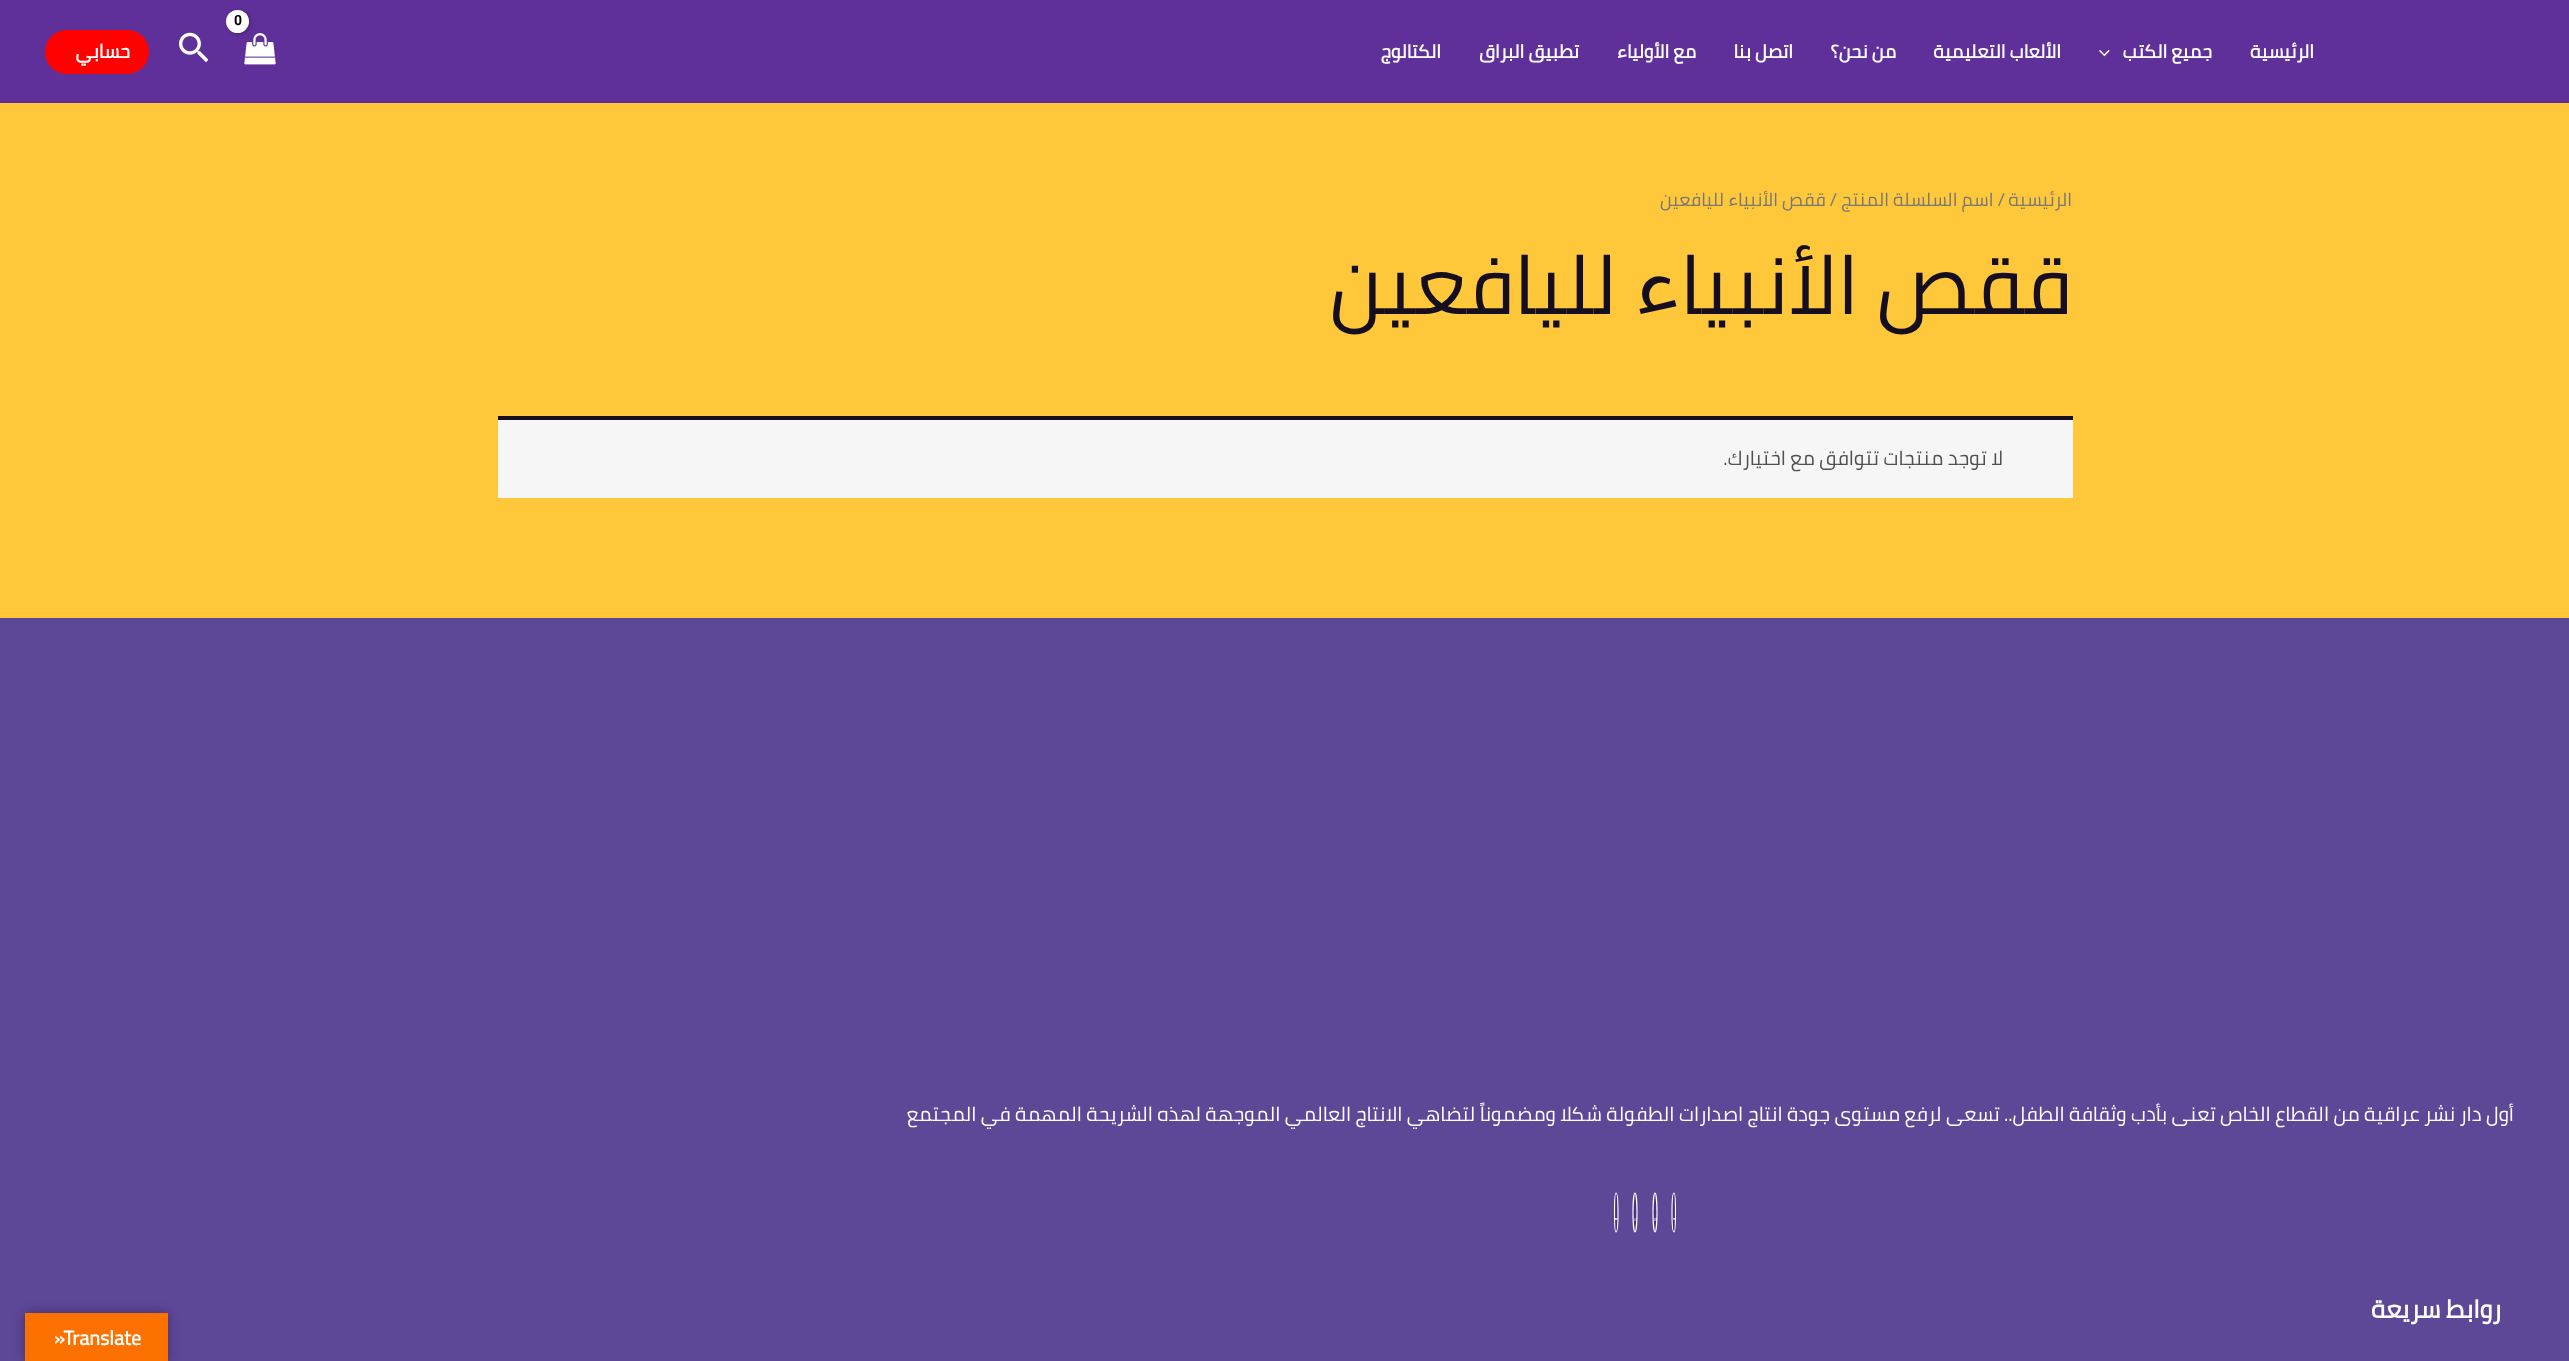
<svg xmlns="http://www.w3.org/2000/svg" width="2569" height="1361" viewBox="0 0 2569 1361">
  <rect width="100%" height="100%" fill="#ffc73a"/>
  <path d="M0 0h2569v103H0z" fill="#60309a"/>
  <image x="2099" y="50" width="11" height="7" href="img/1.png"/>
  <image x="244" y="33" width="32" height="32" href="img/2.png"/>
  <rect x="228" y="11" width="22" height="23" rx="11" fill="#0000004d" filter="blur(2px)"/>
  <circle cx="237.5" cy="21.5" r="11.5" fill="#fff"/>
  <image x="179" y="32" width="29" height="31" href="img/3.png"/>
  <rect x="44.5" y="29.5" width="105" height="45" rx="22.5" fill="#ff0101" stroke="#60309a"/>
  <path d="M498 420h1575v78H498z" fill="#f7f6f7"/>
  <path d="M498 416h1575v4H498z" fill="#150e1f"/>
  <path d="M0 618h2569v743H0z" fill="#5d4797"/>
  <ellipse cx="1674" cy="1212.5" rx="2.5" ry="20" fill="#49317c"/>
  <path d="M1674 1193C1675 1193 1675.5 1202 1675.5 1212.5C1675.5 1223 1675 1232 1674 1232C1672.5 1232 1672 1223 1672 1212.5C1672 1202 1672.5 1193 1674 1193Z" fill="none" stroke="#fff" stroke-width="1.2"/>
  <image x="1673" y="1218" width="2" height="2" href="img/4.png"/>
  <ellipse cx="1655" cy="1212.5" rx="2.5" ry="20" fill="#49317c"/>
  <path d="M1655 1193C1656 1193 1657 1202 1657 1212.5C1657 1223 1656 1232 1655 1232C1654 1232 1653 1223 1653 1212.5C1653 1202 1654 1193 1655 1193Z" fill="none" stroke="#fff" stroke-width="1.2"/>
  <path d="M1654 1218h3v3H1654z" fill="#ffffff66"/>
  <ellipse cx="1635" cy="1212.5" rx="2.5" ry="20" fill="#49317c"/>
  <path d="M1635 1193C1636 1193 1637 1202 1637 1212.5C1637 1223 1636 1232 1635 1232C1634 1232 1633 1223 1633 1212.5C1633 1202 1634 1193 1635 1193Z" fill="none" stroke="#fff" stroke-width="1.2"/>
  <path d="M1634 1218h3v3H1634z" fill="#ffffff47"/>
  <ellipse cx="1616" cy="1212.5" rx="2.5" ry="20" fill="#49317c"/>
  <path d="M1616 1193C1617.5 1193 1618 1202 1618 1212.5C1618 1223 1617.5 1232 1616 1232C1615 1232 1614.5 1223 1614.5 1212.5C1614.5 1202 1615 1193 1616 1193Z" fill="none" stroke="#fff" stroke-width="1.2"/>
  <image x="1615" y="1218" width="3" height="2" href="img/5.png"/>
  <path d="M25 1313h143v48H25z" fill="#0000004d" filter="blur(5.5px)"/>
  <path d="M25 1313h143v48H25z" fill="#fc7100"/>
  <g font-family="Cairo" font-size="18.5" font-weight="bold" direction="rtl" fill="#fff">
    <text x="2314" y="58">الرئيسية</text>
    <text x="2212" y="58">جميع الكتب</text>
    <text x="2061" y="58">الألعاب التعليمية</text>
    <text x="1896" y="58">من نحن؟</text>
    <text x="1793" y="58">اتصل بنا</text>
    <text x="1696" y="58">مع الأولياء</text>
    <text x="1579" y="58">تطبيق البراق</text>
    <text x="1441" y="58">الكتالوج</text>
  </g>
  <text x="234" y="25" font-family="Roboto" font-size="14" font-weight="bold" letter-spacing="-1" fill="#000">0</text>
  <text x="130" y="58" font-family="Cairo" font-size="19" font-weight="bold" letter-spacing="1.25" direction="rtl" fill="#fff">حسابي</text>
  <g font-family="Cairo" font-size="18.4" direction="rtl" fill="#777">
    <text x="2072" y="206">الرئيسية</text>
    <text x="2005" y="206">/ اسم السلسلة المنتج / ققص الأنبياء لليافعين</text>
  </g>
  <text x="2072" y="314" font-family="Cairo" font-size="82.5" direction="rtl" fill="#150e1f">ققص الأنبياء لليافعين</text>
  <text x="2003" y="465" font-family="Cairo" font-size="20" direction="rtl" fill="#515151">لا توجد منتجات تتوافق مع اختيارك.</text>
  <text x="2514" y="1121" font-family="Cairo" font-size="20" direction="rtl" fill="#fff">أول دار نشر عراقية من القطاع الخاص تعنى بأدب وثقافة الطفل.. تسعى لرفع مستوى جودة انتاج اصدارات الطفولة شكلا ومضموناً لتضاهي الانتاج العالمي الموجهة لهذه الشريحة المهمة في المجتمع</text>
  <text x="2501" y="1318" font-family="Cairo" font-size="25" font-weight="bold" direction="rtl" fill="#fff">روابط سريعة</text>
  <text x="54" y="1345" font-family="Cairo" font-size="20" font-weight="bold" fill="#fff">»Translate</text>
</svg>
